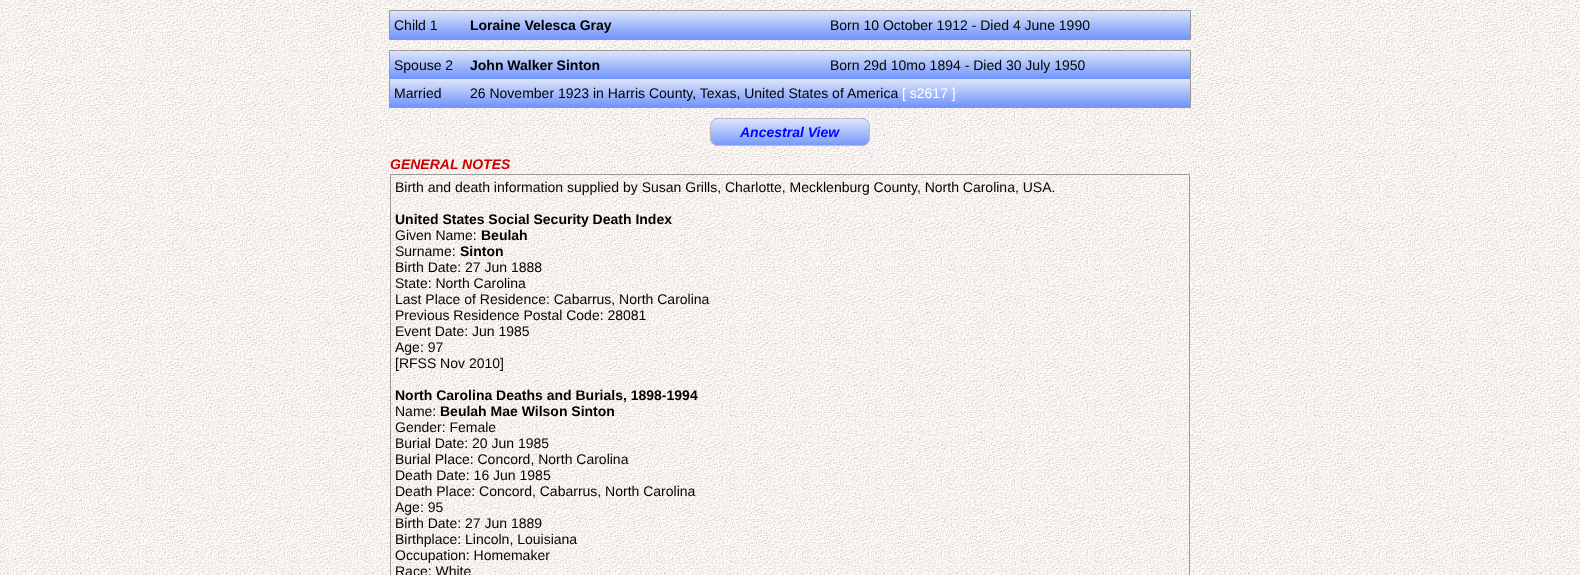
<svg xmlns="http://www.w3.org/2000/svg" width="1580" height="575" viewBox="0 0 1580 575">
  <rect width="100%" height="100%" fill="#fff"/>
  <image x="0" y="0" width="1580" height="575" href="img/1.png"/>
  <path d="M389.5 10.5h801v29H389.5z" fill="none" stroke="#999"/>
  <image x="390" y="11" width="80" height="28" href="img/2.png"/>
  <image x="470" y="11" width="360" height="28" href="img/3.png"/>
  <image x="830" y="11" width="360" height="28" href="img/3.png"/>
  <path d="M389.5 50.5h801v57H389.5z" fill="none" stroke="#999"/>
  <image x="390" y="51" width="80" height="28" href="img/2.png"/>
  <image x="470" y="51" width="360" height="28" href="img/3.png"/>
  <image x="830" y="51" width="360" height="28" href="img/3.png"/>
  <image x="390" y="79" width="80" height="28" href="img/2.png"/>
  <image x="470" y="79" width="720" height="28" href="img/4.png"/>
  <image x="710" y="118" width="160" height="28" href="img/5.png"/>
  <rect x="710.5" y="118.5" width="159" height="27" rx="7.5" fill="none" stroke="#bbb"/>
  <path d="M390.5 174.5h799v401H390.5z" fill="none" stroke="#999"/>
  <text x="394" y="30" font-family="Liberation Sans" font-size="14" fill="#000">Child 1</text>
  <text x="470" y="30" font-family="Liberation Sans" font-size="14" font-weight="bold" fill="#000">Loraine Velesca Gray</text>
  <g font-family="Liberation Sans" font-size="14" fill="#000">
    <text x="830" y="30">Born 10 October 1912 - Died 4 June 1990</text>
    <text x="394" y="70">Spouse 2</text>
  </g>
  <text x="470" y="70" font-family="Liberation Sans" font-size="14" font-weight="bold" fill="#000">John Walker Sinton</text>
  <g font-family="Liberation Sans" font-size="14" fill="#000">
    <text x="830" y="70">Born 29d 10mo 1894 - Died 30 July 1950</text>
    <text x="394" y="98">Married</text>
    <text x="470" y="98">26 November 1923 in Harris County, Texas, United States of America</text>
  </g>
  <text x="902" y="98" font-family="Liberation Sans" font-size="14" fill="#fff">[ s2617 ]</text>
  <text x="740" y="137" font-family="Liberation Sans" font-size="14" font-weight="bold" font-style="italic" fill="#00f">Ancestral View</text>
  <text x="390" y="169" font-family="Liberation Sans" font-size="14" font-weight="bold" font-style="italic" fill="#c00">GENERAL NOTES</text>
  <text x="395" y="192" font-family="Liberation Sans" font-size="14" fill="#000">Birth and death information supplied by Susan Grills, Charlotte, Mecklenburg County, North Carolina, USA.</text>
  <text x="395" y="224" font-family="Liberation Sans" font-size="14" font-weight="bold" fill="#000">United States Social Security Death Index</text>
  <text x="395" y="240" font-family="Liberation Sans" font-size="14" fill="#000">Given Name:</text>
  <text x="481" y="240" font-family="Liberation Sans" font-size="14" font-weight="bold" fill="#000">Beulah</text>
  <text x="395" y="256" font-family="Liberation Sans" font-size="14" fill="#000">Surname:</text>
  <text x="460" y="256" font-family="Liberation Sans" font-size="14" font-weight="bold" fill="#000">Sinton</text>
  <g font-family="Liberation Sans" font-size="14" fill="#000">
    <text x="395" y="272">Birth Date: 27 Jun 1888</text>
    <text x="395" y="288">State: North Carolina</text>
    <text x="395" y="304">Last Place of Residence: Cabarrus, North Carolina</text>
    <text x="395" y="320">Previous Residence Postal Code: 28081</text>
    <text x="395" y="336">Event Date: Jun 1985</text>
    <text x="395" y="352">Age: 97</text>
    <text x="395" y="368">[RFSS Nov 2010]</text>
  </g>
  <text x="395" y="400" font-family="Liberation Sans" font-size="14" font-weight="bold" fill="#000">North Carolina Deaths and Burials, 1898-1994</text>
  <text x="395" y="416" font-family="Liberation Sans" font-size="14" fill="#000">Name:</text>
  <text x="440" y="416" font-family="Liberation Sans" font-size="14" font-weight="bold" fill="#000">Beulah Mae Wilson Sinton</text>
  <g font-family="Liberation Sans" font-size="14" fill="#000">
    <text x="395" y="432">Gender: Female</text>
    <text x="395" y="448">Burial Date: 20 Jun 1985</text>
    <text x="395" y="464">Burial Place: Concord, North Carolina</text>
    <text x="395" y="480">Death Date: 16 Jun 1985</text>
    <text x="395" y="496">Death Place: Concord, Cabarrus, North Carolina</text>
    <text x="395" y="512">Age: 95</text>
    <text x="395" y="528">Birth Date: 27 Jun 1889</text>
    <text x="395" y="544">Birthplace: Lincoln, Louisiana</text>
    <text x="395" y="560">Occupation: Homemaker</text>
    <text x="395" y="576">Race: White</text>
  </g>
</svg>
